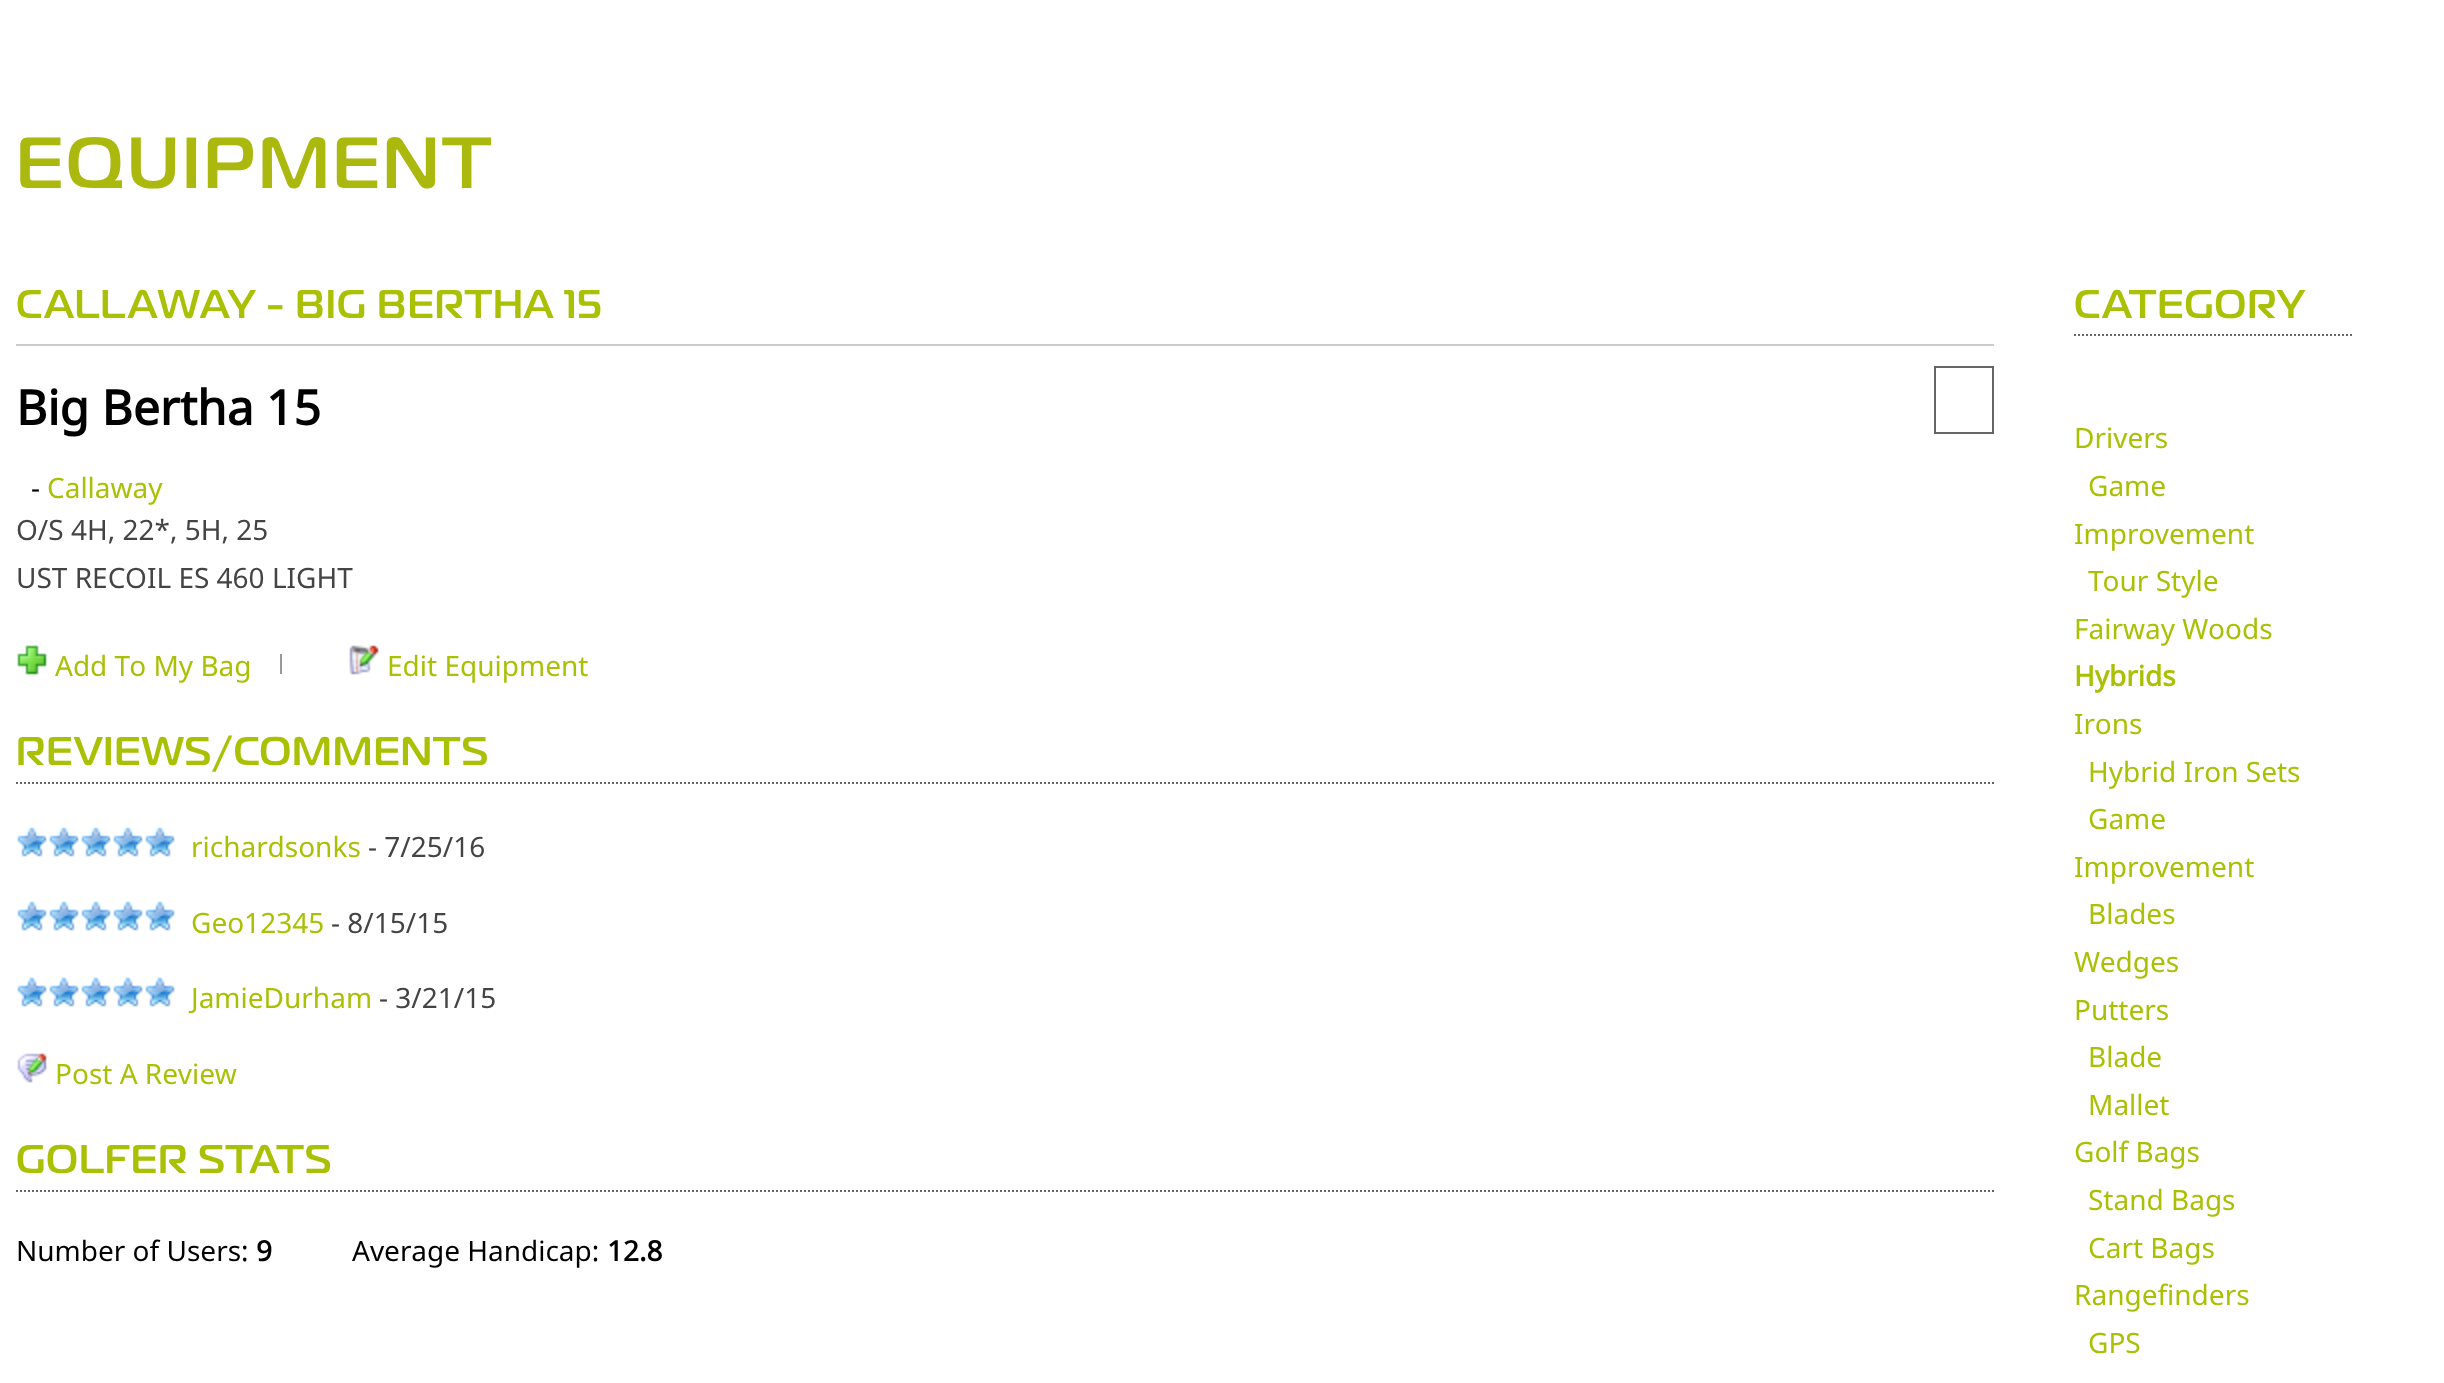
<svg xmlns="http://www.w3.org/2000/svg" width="2444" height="1383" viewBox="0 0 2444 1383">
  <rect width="100%" height="100%" fill="#fff"/>
  <path d="M16 344h1978v2H16z" fill="#ccc"/>
  <path d="M1935 367h58v66H1935z" fill="none" stroke="#666" stroke-width="2"/>
  <image x="17" y="645" width="30" height="30" href="img/1.png"/>
  <path d="M280 654h2v20H280z" fill="#999"/>
  <image x="349" y="645" width="30" height="30" href="img/2.png"/>
  <path d="M16 783H1994" fill="none" stroke="#666" stroke-width="2" stroke-dasharray="2 2"/>
  <image x="17" y="827" width="30" height="30" href="img/3.png"/>
  <image x="49" y="827" width="30" height="30" href="img/3.png"/>
  <image x="81" y="827" width="30" height="30" href="img/3.png"/>
  <image x="113" y="827" width="30" height="30" href="img/3.png"/>
  <image x="145" y="827" width="30" height="30" href="img/3.png"/>
  <image x="17" y="901" width="30" height="30" href="img/3.png"/>
  <image x="49" y="901" width="30" height="30" href="img/3.png"/>
  <image x="81" y="901" width="30" height="30" href="img/3.png"/>
  <image x="113" y="901" width="30" height="30" href="img/3.png"/>
  <image x="145" y="901" width="30" height="30" href="img/3.png"/>
  <image x="17" y="977" width="30" height="30" href="img/3.png"/>
  <image x="49" y="977" width="30" height="30" href="img/3.png"/>
  <image x="81" y="977" width="30" height="30" href="img/3.png"/>
  <image x="113" y="977" width="30" height="30" href="img/3.png"/>
  <image x="145" y="977" width="30" height="30" href="img/3.png"/>
  <image x="17" y="1053" width="30" height="30" href="img/4.png"/>
  <path d="M16 1191H1994" fill="none" stroke="#666" stroke-width="2" stroke-dasharray="2 2"/>
  <path d="M2074 335H2354" fill="none" stroke="#666" stroke-width="2" stroke-dasharray="2 2"/>
  <text x="16" y="188" font-family="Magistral" font-size="72" font-weight="500" letter-spacing="3" fill="#abb80e">EQUIPMENT</text>
  <text x="16" y="318" font-family="Magistral" font-size="40" font-weight="500" letter-spacing="1" fill="#aac005">CALLAWAY - BIG BERTHA 15</text>
  <text x="16" y="425" font-family="Noto Sans" font-size="48" font-weight="bold" fill="#000">Big Bertha 15</text>
  <text x="31" y="498" font-family="Noto Sans" font-size="28" fill="#000">-</text>
  <text x="47" y="498" font-family="Noto Sans" font-size="28" fill="#aac005">Callaway</text>
  <g font-family="Noto Sans" font-size="28" fill="#444">
    <text x="16" y="540">O/S 4H, 22*, 5H, 25</text>
    <text x="16" y="588">UST RECOIL ES 460 LIGHT</text>
  </g>
  <g font-family="Noto Sans" font-size="28" fill="#aac005">
    <text x="55" y="676">Add To My Bag</text>
    <text x="387" y="676">Edit Equipment</text>
  </g>
  <text x="16" y="765" font-family="Magistral" font-size="40" font-weight="500" letter-spacing="1" fill="#aac005">REVIEWS/COMMENTS</text>
  <text x="191" y="857" font-family="Noto Sans" font-size="28" fill="#aac005">richardsonks</text>
  <text x="368" y="857" font-family="Noto Sans" font-size="28" fill="#444">- 7/25/16</text>
  <text x="191" y="933" font-family="Noto Sans" font-size="28" fill="#aac005">Geo12345</text>
  <text x="331" y="933" font-family="Noto Sans" font-size="28" fill="#444">- 8/15/15</text>
  <text x="191" y="1008" font-family="Noto Sans" font-size="28" fill="#aac005">JamieDurham</text>
  <text x="379" y="1008" font-family="Noto Sans" font-size="28" fill="#444">- 3/21/15</text>
  <text x="55" y="1084" font-family="Noto Sans" font-size="28" fill="#aac005">Post A Review</text>
  <text x="16" y="1173" font-family="Magistral" font-size="40" font-weight="500" letter-spacing="1" fill="#aac005">GOLFER STATS</text>
  <text x="16" y="1261" font-family="Noto Sans" font-size="28" fill="#000">Number of Users:</text>
  <text x="256" y="1261" font-family="Noto Sans" font-size="28" font-weight="bold" fill="#000">9</text>
  <text x="352" y="1261" font-family="Noto Sans" font-size="28" fill="#000">Average Handicap:</text>
  <text x="607" y="1261" font-family="Noto Sans" font-size="28" font-weight="bold" fill="#000">12.8</text>
  <text x="2074" y="318" font-family="Magistral" font-size="40" font-weight="500" letter-spacing="1" fill="#aac005">CATEGORY</text>
  <g font-family="Noto Sans" font-size="28" fill="#aac005">
    <text x="2074" y="448">Drivers</text>
    <text x="2088" y="496">Game</text>
    <text x="2074" y="544">Improvement</text>
    <text x="2088" y="591">Tour Style</text>
    <text x="2074" y="639">Fairway Woods</text>
  </g>
  <text x="2074" y="686" font-family="Noto Sans" font-size="28" font-weight="bold" fill="#aac005">Hybrids</text>
  <g font-family="Noto Sans" font-size="28" fill="#aac005">
    <text x="2074" y="734">Irons</text>
    <text x="2088" y="782">Hybrid Iron Sets</text>
    <text x="2088" y="829">Game</text>
    <text x="2074" y="877">Improvement</text>
    <text x="2088" y="924">Blades</text>
    <text x="2074" y="972">Wedges</text>
    <text x="2074" y="1020">Putters</text>
    <text x="2088" y="1067">Blade</text>
    <text x="2088" y="1115">Mallet</text>
    <text x="2074" y="1162">Golf Bags</text>
    <text x="2088" y="1210">Stand Bags</text>
    <text x="2088" y="1258">Cart Bags</text>
    <text x="2074" y="1305">Rangefinders</text>
    <text x="2088" y="1353">GPS</text>
  </g>
</svg>
